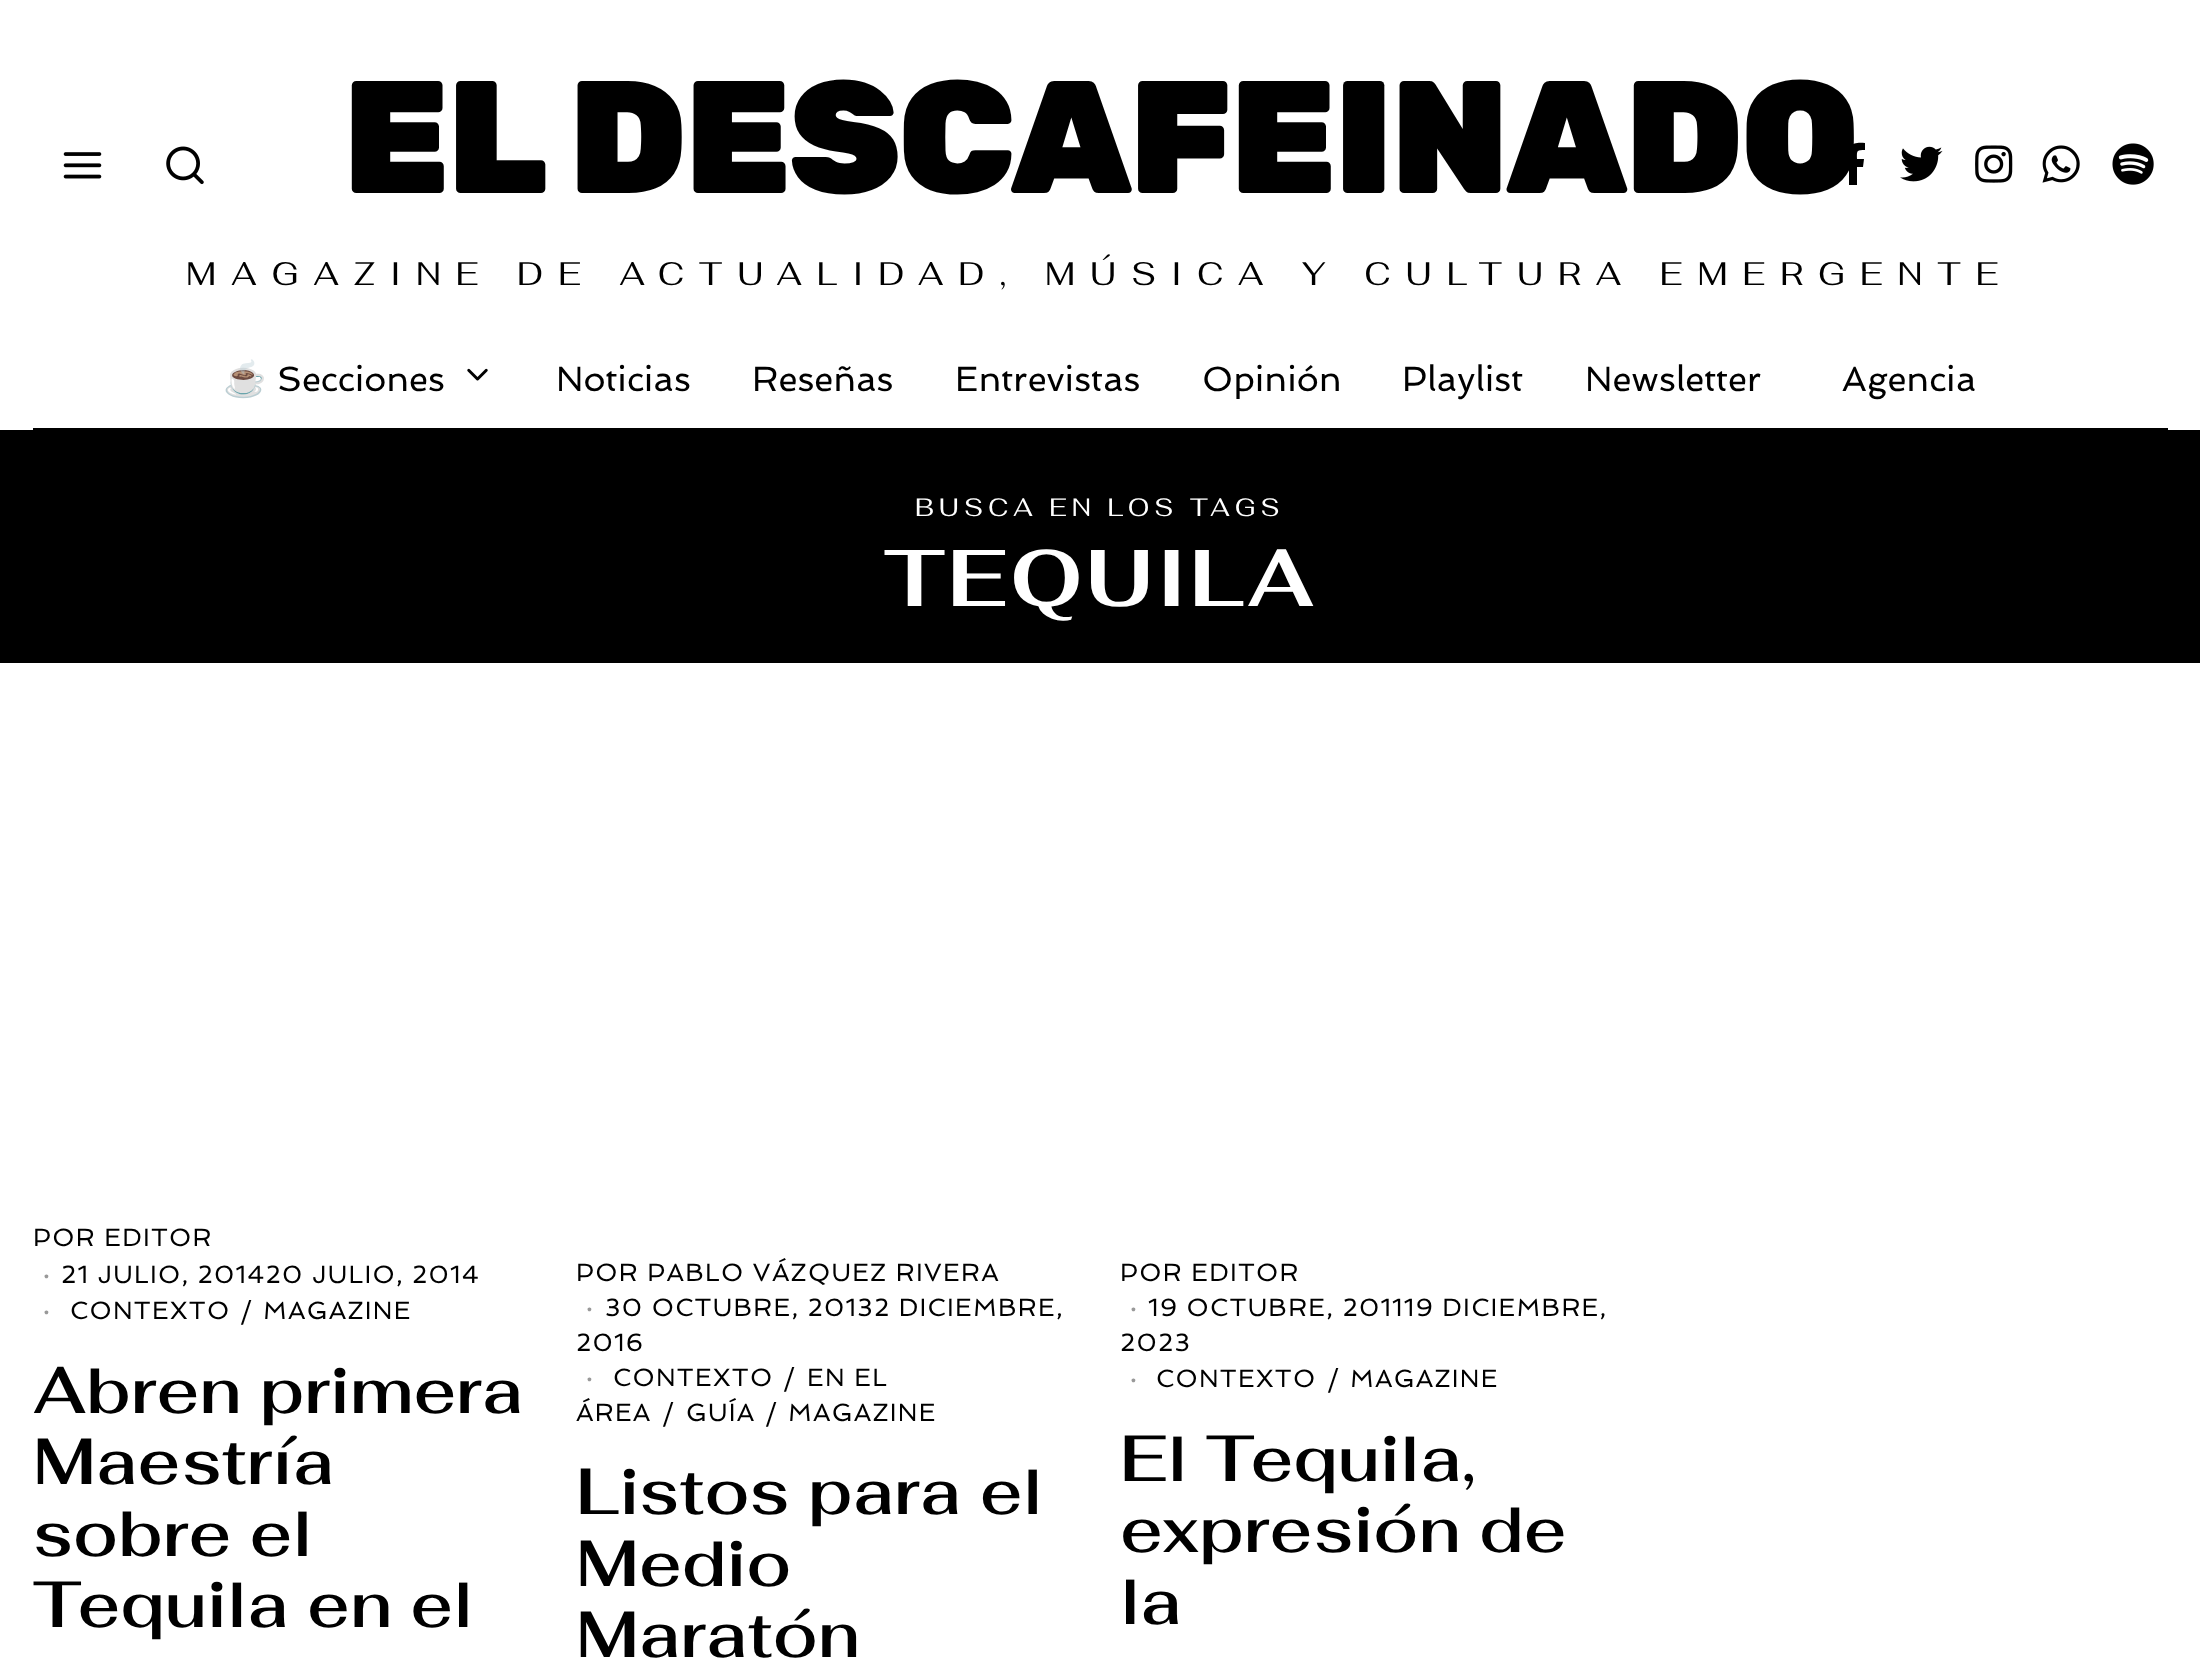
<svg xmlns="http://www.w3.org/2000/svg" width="2200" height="1678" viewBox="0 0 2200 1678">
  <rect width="100%" height="100%" fill="#fff"/>
  <image x="63" y="152" width="39" height="27" href="img/1.png"/>
  <image x="166" y="146" width="38" height="39" href="img/2.png"/>
  <path d="M1863 167H1857V185H1849V167H1842V159H1849C1849 145 1851 142 1865 143V150C1856 150 1857 151 1857 159H1864Z" fill="#000"/>
  <image x="1900" y="146" width="43" height="36" href="img/3.png"/>
  <image x="1975" y="145" width="38" height="38" href="img/4.png"/>
  <image x="2042" y="145" width="38" height="38" href="img/5.png"/>
  <image x="2112" y="143" width="42" height="42" href="img/6.png"/>
  <path d="M33 428h2135v2H33z" fill="#000"/>
  <image x="467" y="368" width="21" height="13" href="img/7.png"/>
  <path d="M0 430h2200v233H0z" fill="#000"/>
  <text x="343" y="193" font-family="Rubik" font-size="160" font-weight="300" letter-spacing="-2.5" fill="#000">EL DESCAFEINADO</text>
  <text x="186" y="285" font-family="Fahkwang" font-size="32.5" letter-spacing="15" fill="#000">MAGAZINE DE ACTUALIDAD, MÚSICA Y CULTURA EMERGENTE</text>
  <text x="223" y="391" font-family="Noto Color Emoji" font-size="35" fill="#000">☕️</text>
  <g font-family="Spinnaker" font-size="35" fill="#000">
    <text x="277" y="391">Secciones</text>
    <text x="556" y="391">Noticias</text>
    <text x="752" y="391">Reseñas</text>
    <text x="955" y="391">Entrevistas</text>
    <text x="1202" y="391">Opinión</text>
    <text x="1402" y="391">Playlist</text>
    <text x="1585" y="391">Newsletter</text>
    <text x="1842" y="391">Agencia</text>
  </g>
  <text x="915" y="516" font-family="Fahkwang" font-size="25" letter-spacing="5" fill="#fff">BUSCA EN LOS TAGS</text>
  <text x="884" y="606" font-family="Fahkwang" font-size="80" font-weight="bold" letter-spacing="2.5" fill="#fff">TEQUILA</text>
  <text x="33" y="1246" font-family="Spinnaker" font-size="25" letter-spacing="1.25" fill="#000">POR EDITOR</text>
  <text x="43" y="1283" font-family="Spinnaker" font-size="25" letter-spacing="1.25" fill="#999">·</text>
  <text x="61" y="1283" font-family="Spinnaker" font-size="25" letter-spacing="1.25" fill="#000">21 JULIO, 201420 JULIO, 2014</text>
  <text x="43" y="1319" font-family="Spinnaker" font-size="25" letter-spacing="1.25" fill="#999">·</text>
  <g font-family="Spinnaker" font-size="25" letter-spacing="1.25" fill="#000">
    <text x="70" y="1319">CONTEXTO</text>
    <text x="240" y="1319">/</text>
    <text x="263" y="1319">MAGAZINE</text>
  </g>
  <g font-family="Fahkwang" font-size="65" font-weight="600" fill="#000">
    <text x="33" y="1413">Abren primera</text>
    <text x="33" y="1484">Maestría</text>
    <text x="33" y="1556">sobre el</text>
    <text x="33" y="1627">Tequila en el</text>
  </g>
  <text x="576" y="1281" font-family="Spinnaker" font-size="25" letter-spacing="1.25" fill="#000">POR PABLO VÁZQUEZ RIVERA</text>
  <text x="586" y="1316" font-family="Spinnaker" font-size="25" letter-spacing="1.25" fill="#999">·</text>
  <g font-family="Spinnaker" font-size="25" letter-spacing="1.25" fill="#000">
    <text x="605" y="1316">30 OCTUBRE, 20132 DICIEMBRE,</text>
    <text x="576" y="1351">2016</text>
  </g>
  <text x="586" y="1386" font-family="Spinnaker" font-size="25" letter-spacing="1.25" fill="#999">·</text>
  <g font-family="Spinnaker" font-size="25" letter-spacing="1.25" fill="#000">
    <text x="613" y="1386">CONTEXTO</text>
    <text x="783" y="1386">/</text>
    <text x="807" y="1386">EN EL</text>
    <text x="576" y="1421">ÁREA</text>
    <text x="662" y="1421">/</text>
    <text x="686" y="1421">GUÍA</text>
    <text x="765" y="1421">/</text>
    <text x="788" y="1421">MAGAZINE</text>
  </g>
  <g font-family="Fahkwang" font-size="65" font-weight="600" fill="#000">
    <text x="576" y="1514">Listos para el</text>
    <text x="576" y="1586">Medio</text>
    <text x="576" y="1657">Maratón</text>
  </g>
  <text x="1120" y="1281" font-family="Spinnaker" font-size="25" letter-spacing="1.25" fill="#000">POR EDITOR</text>
  <text x="1130" y="1316" font-family="Spinnaker" font-size="25" letter-spacing="1.25" fill="#999">·</text>
  <g font-family="Spinnaker" font-size="25" letter-spacing="1.25" fill="#000">
    <text x="1148" y="1316">19 OCTUBRE, 201119 DICIEMBRE,</text>
    <text x="1120" y="1351">2023</text>
  </g>
  <text x="1130" y="1387" font-family="Spinnaker" font-size="25" letter-spacing="1.25" fill="#999">·</text>
  <g font-family="Spinnaker" font-size="25" letter-spacing="1.25" fill="#000">
    <text x="1156" y="1387">CONTEXTO</text>
    <text x="1327" y="1387">/</text>
    <text x="1350" y="1387">MAGAZINE</text>
  </g>
  <g font-family="Fahkwang" font-size="65" font-weight="600" fill="#000">
    <text x="1120" y="1481">El Tequila,</text>
    <text x="1120" y="1552">expresión de</text>
    <text x="1120" y="1624">la</text>
  </g>
</svg>
